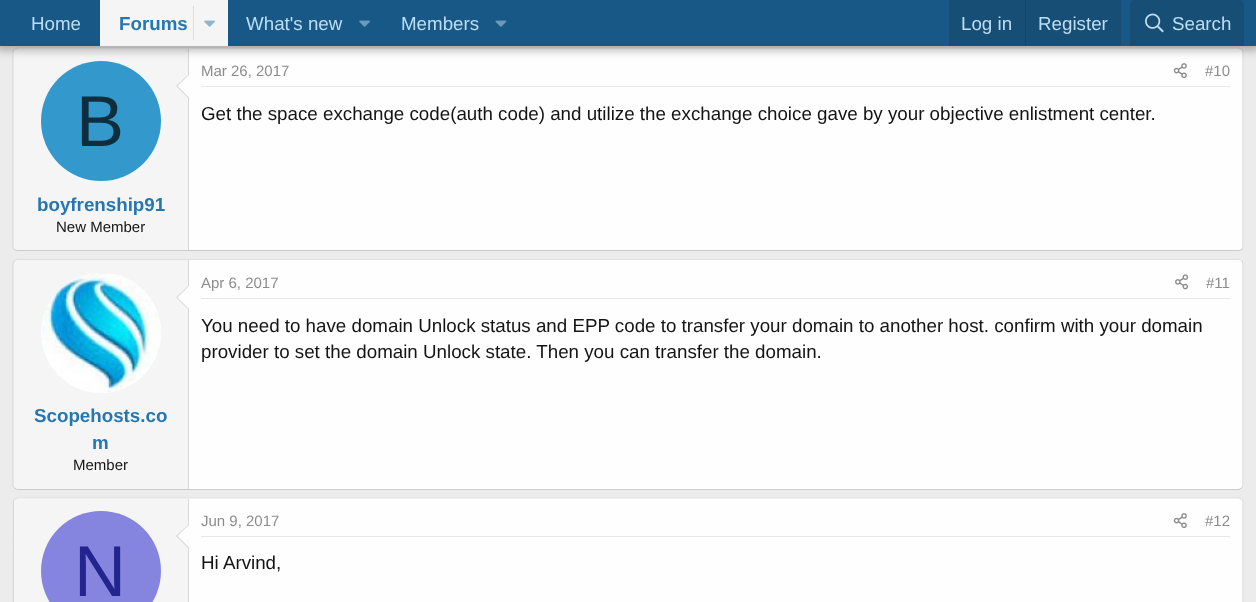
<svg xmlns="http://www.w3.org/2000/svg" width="1256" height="602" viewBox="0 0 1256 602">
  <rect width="100%" height="100%" fill="#ececec"/>
  <rect x="13" y="48" width="1231" height="203" rx="5" fill="#fefefe"/>
  <path d="M14.5 49.5L17.5 48H1239L1242 49.5" fill="none" stroke="#dfdfdf" stroke-width="1.2"/>
  <path d="M1242 49.5C1242.5 50 1243 51.5 1243 52.5V246C1243 247.5 1242.5 248.5 1242 249.5" fill="none" stroke="#d8d8d8" stroke-width="1.2"/>
  <path d="M1242 249.5L1239 250.5H17.5L14.5 249.5" fill="none" stroke="#cbcbcb" stroke-width="1.2"/>
  <path d="M14.5 249.5C13.5 248.5 13 247.5 13 246V52.5C13 51.5 13.5 50 14.5 49.5" fill="none" stroke="#d8d8d8" stroke-width="1.2"/>
  <path d="M18 49H189V250H18C16 250 14 248 14 246V53C14 51 16 49 18 49Z" fill="#f5f5f5"/>
  <path d="M188 49h1v201H188z" fill="#d8d8d8"/>
  <circle cx="101" cy="121" r="60" fill="#39c"/>
  <image x="1173" y="63" width="14" height="16" href="img/5.png"/>
  <path d="M-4 -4h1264v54H-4z" fill="#0000004d" filter="blur(5px)"/>
  <path d="M0 0h1256v46H0z" fill="#185886"/>
  <path d="M100 0h128v46H100z" fill="#f5f5f5"/>
  <path d="M193 6h1v34H193z" fill="#d1dfe9"/>
  <image x="204" y="20" width="11" height="7" href="img/1.png"/>
  <image x="359" y="20" width="11" height="7" href="img/2.png"/>
  <image x="495" y="20" width="12" height="7" href="img/3.png"/>
  <path d="M949 0h172v46H949z" fill="#174e75"/>
  <path d="M1025 0h1v46H1025z" fill="#174566"/>
  <path d="M1135 0H1239C1242 0 1244 2 1244 5V46H1130V5C1130 2 1132 0 1135 0Z" fill="#174e75"/>
  <image x="1145" y="13" width="19" height="20" href="img/4.png"/>
  <path d="M189 74V99L176 86Z" fill="#d8d8d8"/>
  <path d="M189 75V97.5L177.5 86Z" fill="#fefefe"/>
  <path d="M201 86h1029v1H201z" fill="#e7e7e7"/>
  <rect x="13" y="259" width="1231" height="231" rx="5" fill="#fefefe"/>
  <path d="M14.5 260.5L17.5 259.5H1239L1242 260.5" fill="none" stroke="#dfdfdf" stroke-width="1.2"/>
  <path d="M1242 260.5L1243 263.5V448V485L1242 488" fill="none" stroke="#d8d8d8" stroke-width="1.2"/>
  <path d="M1242 488L1239 489.5H17.5L14.5 488" fill="none" stroke="#cbcbcb" stroke-width="1.2"/>
  <path d="M14.5 488L13 485.5V300.5V264L14.5 260.5" fill="none" stroke="#d8d8d8" stroke-width="1.2"/>
  <path d="M201 298h1029v1H201z" fill="#e7e7e7"/>
  <image x="1175" y="274" width="14" height="16" href="img/6.png"/>
  <path d="M18 260H189V489H18C16 489 14 487 14 485V264C14 262 16 260 18 260Z" fill="#f5f5f5"/>
  <path d="M188 260h1v229H188z" fill="#d8d8d8"/>
  <circle cx="101" cy="333" r="60" fill="#fefefe"/>
  <image x="42" y="273" width="119" height="119" href="img/7.png"/>
  <path d="M189 285V310L176 297.5Z" fill="#d8d8d8"/>
  <path d="M189 286V309L177.5 297.5Z" fill="#fefefe"/>
  <rect x="13" y="498" width="1231" height="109" rx="5" fill="#fefefe"/>
  <path d="M14.5 499.5L17.5 498H1239L1242 499.5" fill="none" stroke="#dfdfdf" stroke-width="1.2"/>
  <path d="M1242 499.5L1243 501V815V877.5L1242 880.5" fill="none" stroke="#d8d8d8" stroke-width="1.2"/>
  <path d="M14.5 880.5L13 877.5L13.5 501L14.5 499.5" fill="none" stroke="#d8d8d8" stroke-width="1.2"/>
  <path d="M18 499H189V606H18C16 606 14 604 14 602V503C14 501 16 499 18 499Z" fill="#f5f5f5"/>
  <path d="M188 499h1v103H188z" fill="#d8d8d8"/>
  <path d="M189 524V549L176 536Z" fill="#d8d8d8"/>
  <path d="M189 525V547.5L177.5 536Z" fill="#fefefe"/>
  <circle cx="101" cy="571" r="60" fill="#8585e0"/>
  <path d="M201 536h1029v1H201z" fill="#e7e7e7"/>
  <image x="1173" y="513" width="14" height="16" href="img/5.png"/>
  <text x="31" y="30" font-family="Liberation Sans" font-size="18.75" fill="#bcdef5">Home</text>
  <text x="119" y="30" font-family="Liberation Sans" font-size="18.75" font-weight="bold" fill="#2577b1">Forums</text>
  <g font-family="Liberation Sans" font-size="18.75" fill="#bcdef5">
    <text x="246" y="30">What's new</text>
    <text x="401" y="30">Members</text>
    <text x="961" y="30">Log in</text>
    <text x="1038" y="30">Register</text>
    <text x="1172" y="30">Search</text>
  </g>
  <text x="76" y="146" font-family="Liberation Sans" font-size="72" fill="#0f2e3d">B</text>
  <text x="37" y="211" font-family="Liberation Sans" font-size="18.75" font-weight="bold" fill="#2577b1">boyfrenship91</text>
  <text x="56" y="232" font-family="Liberation Sans" font-size="15" fill="#141414">New Member</text>
  <g font-family="Liberation Sans" font-size="15" fill="#8c8c8c">
    <text x="201" y="76">Mar 26, 2017</text>
    <text x="1205" y="76">#10</text>
  </g>
  <text x="201" y="120" font-family="Liberation Sans" font-size="18.75" fill="#141414">Get the space exchange code(auth code) and utilize the exchange choice gave by your objective enlistment center.</text>
  <g font-family="Liberation Sans" font-size="15" fill="#8c8c8c">
    <text x="201" y="288">Apr 6, 2017</text>
    <text x="1206" y="288">#11</text>
  </g>
  <g font-family="Liberation Sans" font-size="18.75" fill="#141414">
    <text x="201" y="332">You need to have domain Unlock status and EPP code to transfer your domain to another host. confirm with your domain</text>
    <text x="201" y="358">provider to set the domain Unlock state. Then you can transfer the domain.</text>
  </g>
  <g font-family="Liberation Sans" font-size="18.75" font-weight="bold" fill="#2577b1">
    <text x="34" y="422">Scopehosts.co</text>
    <text x="92" y="449">m</text>
  </g>
  <text x="73" y="470" font-family="Liberation Sans" font-size="15" fill="#141414">Member</text>
  <text x="74" y="596" font-family="Liberation Sans" font-size="72" fill="#24248f">N</text>
  <g font-family="Liberation Sans" font-size="15" fill="#8c8c8c">
    <text x="201" y="526">Jun 9, 2017</text>
    <text x="1205" y="526">#12</text>
  </g>
  <text x="201" y="569" font-family="Liberation Sans" font-size="18.75" fill="#141414">Hi Arvind,</text>
</svg>
